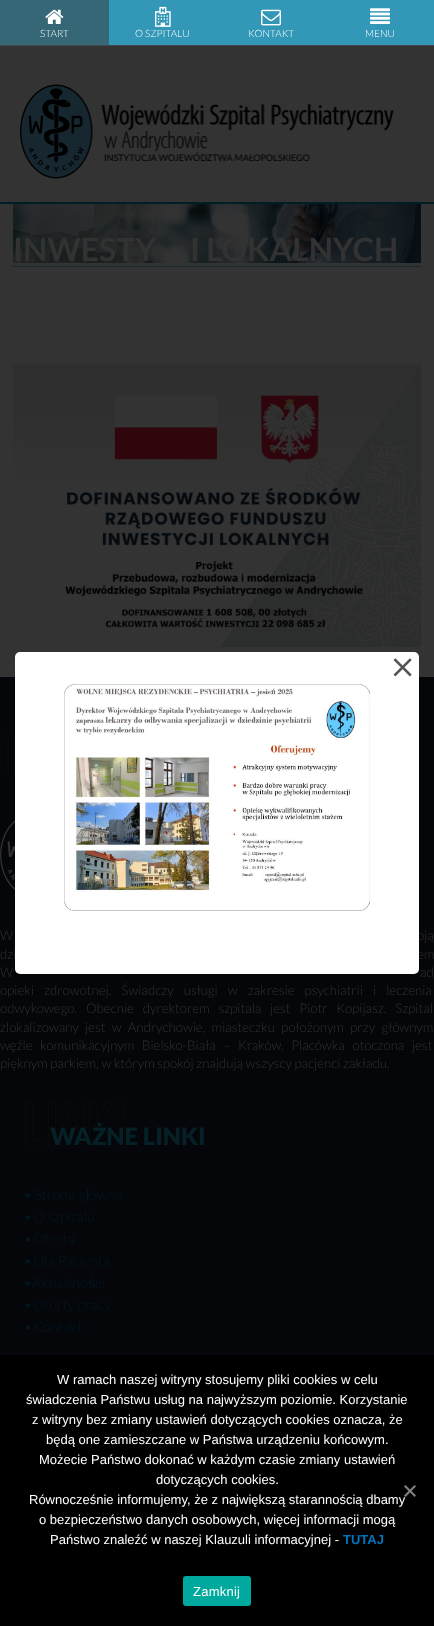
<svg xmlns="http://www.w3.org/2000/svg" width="434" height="1626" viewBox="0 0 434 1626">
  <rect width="100%" height="100%" fill="#333"/>
  <path d="M109 0h325v45H109z" fill="#3398b7"/>
  <path d="M0 45h434v1H0z" fill="#43494b"/>
  <path d="M0 0h109v45H0z" fill="#356777"/>
  <image x="45" y="9" width="19" height="15" href="img/1.png"/>
  <image x="155" y="6" width="16" height="21" href="img/2.png"/>
  <image x="261" y="9" width="20" height="17" href="img/3.png"/>
  <image x="370" y="8" width="20" height="16" href="img/4.png"/>
  <path d="M0 202h434v2H0z" fill="#001e23"/>
  <image x="20" y="84" width="374" height="95" href="img/5.png"/>
  <path d="M13 266h408v1H13z" fill="#162730"/>
  <image x="13" y="204" width="408" height="59" href="img/6.png"/>
  <image x="13" y="363" width="408" height="284" href="img/7.png"/>
  <path d="M0 677h434v678H0z" fill="#050609"/>
  <image x="0" y="732" width="15" height="46" href="img/8.png"/>
  <image x="0" y="820" width="15" height="70" href="img/9.png"/>
  <image x="25" y="1102" width="100" height="46" href="img/10.png"/>
  <path d="M0 1355h434v271H0z" fill="#000"/>
  <rect x="183" y="1576" width="68" height="30" rx="3" fill="#00a99d"/>
  <g font-family="Lato" font-size="10" font-weight="300" fill="#fff">
    <text x="40" y="37">START</text>
    <text x="135" y="37">O SZPITALU</text>
    <text x="248" y="37">KONTAKT</text>
    <text x="365" y="37">MENU</text>
  </g>
  <g font-family="Lato" font-size="32" font-weight="bold" fill="#323232">
    <text x="13" y="261">INWESTY</text>
    <text x="190" y="261">I LOKALNYCH</text>
  </g>
  <g font-family="Lato" font-size="13.3" font-weight="300" fill="#323232">
    <text x="0" y="940" word-spacing="9">W</text>
    <text x="417" y="940" word-spacing="9">oją</text>
    <text x="0" y="959" word-spacing="7">dzi</text>
    <text x="417" y="959" word-spacing="7">em</text>
    <text x="0" y="977" word-spacing="1">W</text>
    <text x="420" y="977" word-spacing="1">ad</text>
    <text x="0" y="995" word-spacing="7.5">opieki zdrowotnej. Świadczy usługi w zakresie psychiatrii i leczenia</text>
    <text x="0" y="1013" word-spacing="6.25">odwykowego. Obecnie dyrektorem szpitala jest Piotr Kopijasz. Szpital</text>
    <text x="0" y="1032" word-spacing="3.75">zlokalizowany jest w Andrychowie, miasteczku położonym przy głównym</text>
    <text x="0" y="1050" word-spacing="5">węźle komunikacyjnym Bielsko-Biała – Kraków. Placówka otoczona jest</text>
    <text x="0" y="1068">pięknym parkiem, w którym spokój znajdują wszyscy pacjenci zakładu.</text>
  </g>
  <text x="50" y="1145" font-family="Lato" font-size="24" font-weight="900" fill="#052026">WAŻNE LINKI</text>
  <text x="25" y="1200" font-family="Liberation Sans" font-size="14.5" fill="#001726">▪</text>
  <text x="34" y="1200" word-spacing="1" font-family="Lato" font-size="14.5" font-weight="300" fill="#001726">Strona g</text>
  <text x="86" y="1200" font-family="Liberation Sans" font-size="14.5" fill="#001726">ł</text>
  <text x="89" y="1200" font-family="Lato" font-size="14.5" font-weight="300" fill="#001726">ówna</text>
  <text x="25" y="1222" font-family="Liberation Sans" font-size="14.5" fill="#001726">▪</text>
  <text x="33" y="1222" font-family="Lato" font-size="14.5" font-weight="300" fill="#001726">O szpitalu</text>
  <text x="25" y="1244" font-family="Liberation Sans" font-size="14.5" fill="#001726">▪</text>
  <text x="33" y="1244" font-family="Lato" font-size="14.5" font-weight="300" fill="#001726">Oferta</text>
  <text x="25" y="1266" font-family="Liberation Sans" font-size="14.5" fill="#001726">▪</text>
  <text x="33" y="1266" font-family="Lato" font-size="14.5" font-weight="300" fill="#001726">Dla Pacjenta</text>
  <text x="25" y="1288" font-family="Liberation Sans" font-size="14.5" fill="#001726">▪</text>
  <text x="32" y="1288" font-family="Lato" font-size="14.5" font-weight="300" fill="#001726">Aktualno</text>
  <text x="88" y="1288" font-family="Liberation Sans" font-size="14.5" fill="#001726">ś</text>
  <text x="95" y="1288" font-family="Lato" font-size="14.5" font-weight="300" fill="#001726">ci</text>
  <text x="25" y="1310" font-family="Liberation Sans" font-size="14.5" fill="#001726">▪</text>
  <text x="33" y="1310" font-family="Lato" font-size="14.5" font-weight="300" fill="#001726">Oferty pracy</text>
  <text x="25" y="1332" font-family="Liberation Sans" font-size="14.5" fill="#001726">▪</text>
  <text x="33" y="1332" font-family="Lato" font-size="14.5" font-weight="300" fill="#001726">Kontakt</text>
  <rect x="15" y="652" width="404" height="322" rx="5" fill="#fff"/>
  <image x="64" y="684" width="306" height="227" href="img/11.png"/>
  <image x="393" y="658" width="19" height="19" href="img/12.png"/>
  <g font-family="Liberation Sans" font-size="13" fill="#fff">
    <text x="57" y="1384">W ramach naszej witryny stosujemy pliki cookies w celu</text>
    <text x="26" y="1404">świadczenia Państwu usług na najwyższym poziomie. Korzystanie</text>
    <text x="32" y="1424">z witryny bez zmiany ustawień dotyczących cookies oznacza, że</text>
    <text x="46" y="1444">będą one zamieszczane w Państwa urządzeniu końcowym.</text>
    <text x="39" y="1464">Możecie Państwo dokonać w każdym czasie zmiany ustawień</text>
    <text x="156" y="1484">dotyczących cookies.</text>
    <text x="29" y="1504">Równocześnie informujemy, że z największą starannością dbamy</text>
    <text x="39" y="1524">o bezpieczeństwo danych osobowych, więcej informacji mogą</text>
    <text x="50" y="1544">Państwo znaleźć w naszej Klauzuli informacyjnej -</text>
  </g>
  <text x="343" y="1544" font-family="Liberation Sans" font-size="13" font-weight="bold" fill="#0274be">TUTAJ</text>
  <path d="M414.5 1485L416 1486.5L405.5 1497L404 1495.5Z" fill="#808080"/>
  <path d="M404 1486.5L405.5 1485L416 1495.5L414.5 1497Z" fill="#808080"/>
  <text x="193" y="1596" font-family="Liberation Sans" font-size="13" letter-spacing="0.25" fill="#fff">Zamknij</text>
</svg>
